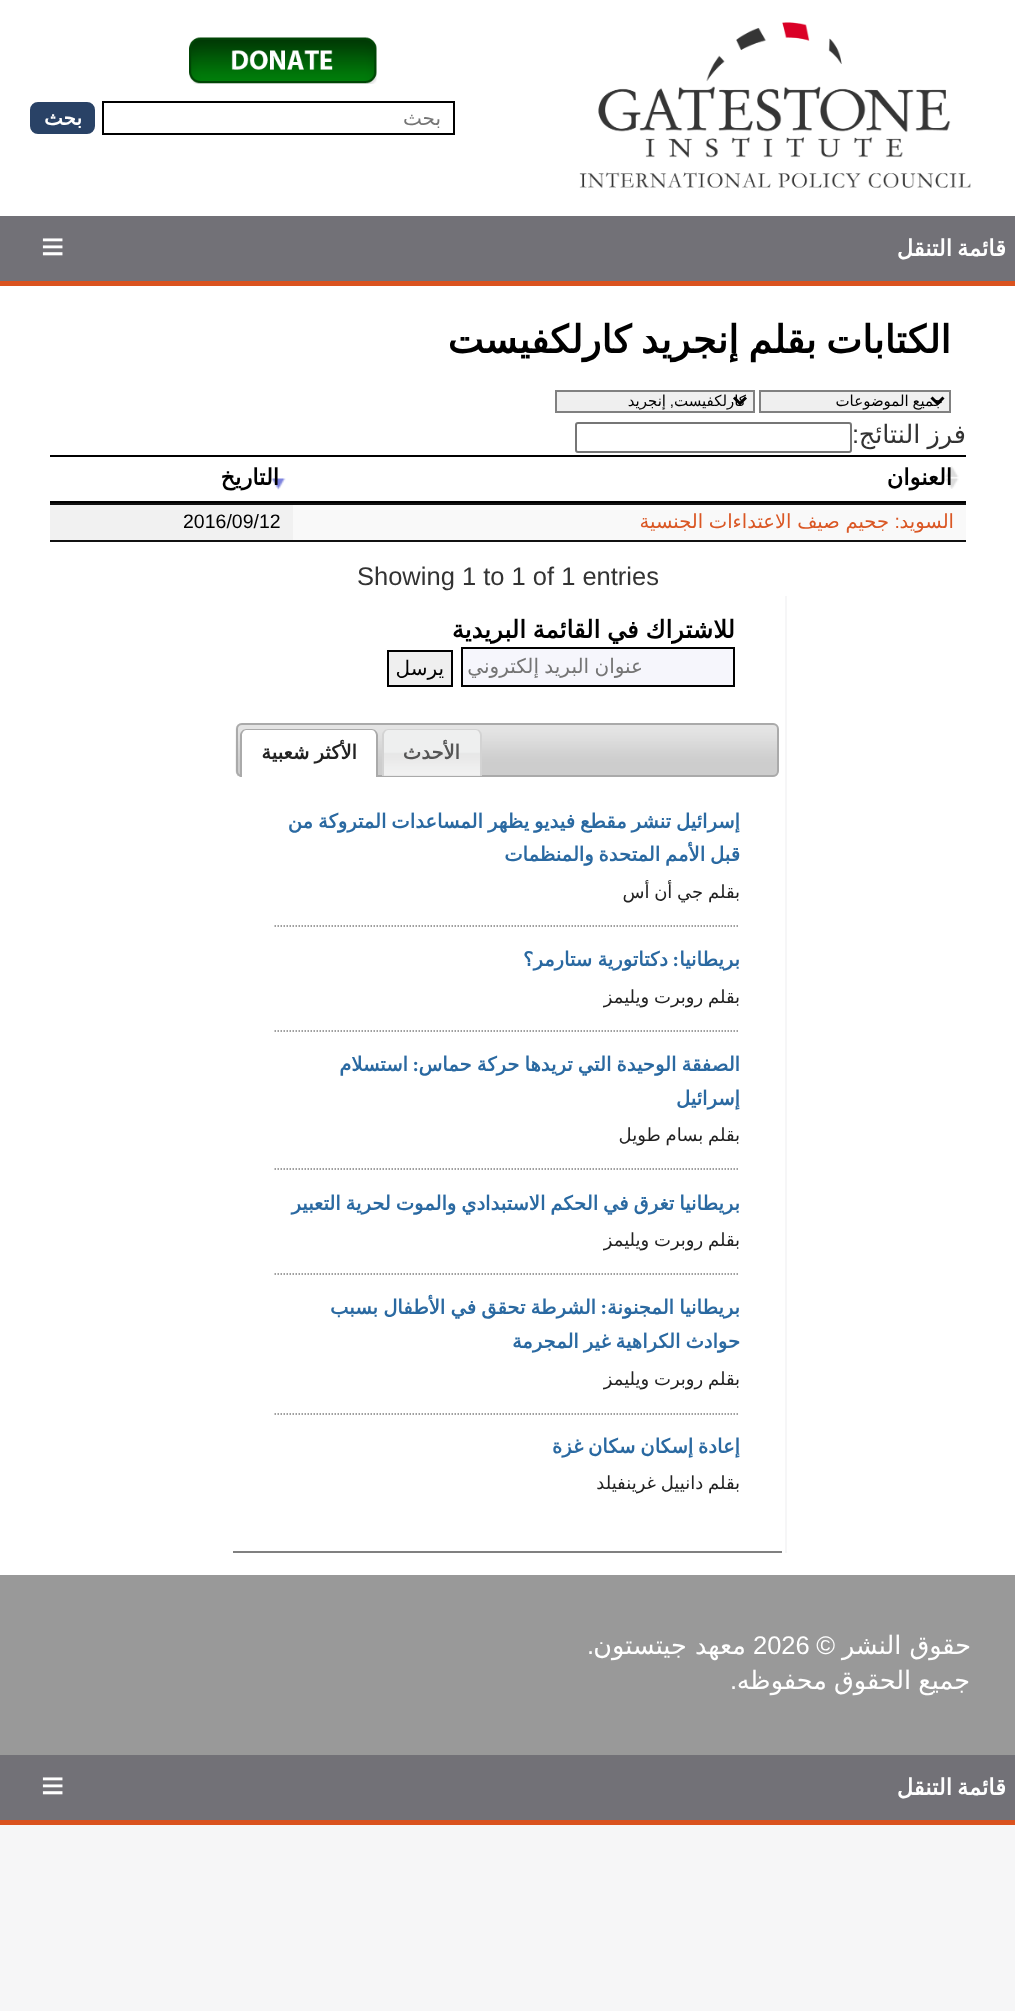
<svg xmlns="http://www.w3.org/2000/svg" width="1015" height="2011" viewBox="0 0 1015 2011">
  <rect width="100%" height="100%" fill="#f6f6f7"/>
  <path d="M0 0h1015v1575H0z" fill="#fff"/>
  <image x="579" y="22" width="392" height="166" href="img/1.png"/>
  <image x="189" y="37" width="188" height="47" href="img/2.png"/>
  <path d="M103 102h351v32H103z" fill="none" stroke="#000" stroke-width="2"/>
  <rect x="31" y="103" width="63" height="30" rx="7" fill="#294266" stroke="#294266" stroke-width="2"/>
  <path d="M0 216h1015v65H0z" fill="#727177"/>
  <path d="M0 281h1015v5H0z" fill="#da521e"/>
  <path d="M760 391h190v21H760z" fill="#efefef" stroke="#808080" stroke-width="2"/>
  <path d="M931.5 397.5L937.5 403.5L943.5 397.5" fill="none" stroke="#000" stroke-width="3"/>
  <path d="M556 391h198v21H556z" fill="#efefef" stroke="#808080" stroke-width="2"/>
  <path d="M734 397.5L740 403.5L746 397.5" fill="none" stroke="#000" stroke-width="3"/>
  <rect x="576" y="423" width="275" height="29" rx="2" fill="none" stroke="#767676" stroke-width="2"/>
  <path d="M50 540h916v2H50z" fill="#111"/>
  <path d="M293 505h673v35H293z" fill="#f9f9f9"/>
  <path d="M50 505h243v35H50z" fill="#f1f1f1"/>
  <path d="M785 596h2v957H785z" fill="#f6f6f7"/>
  <path d="M462 648h272v38H462z" fill="#f6f6fc" stroke="#000" stroke-width="2"/>
  <path d="M388 651h64v35H388z" fill="#efefef" stroke="#000" stroke-width="2"/>
  <path d="M233 1551h549v2H233z" fill="#808080"/>
  <image x="235" y="723" width="544" height="54" href="img/3.png"/>
  <rect x="237" y="724" width="541" height="52" rx="5" fill="none" stroke="#aaa" stroke-width="2"/>
  <path d="M384 775h96v1H384z" fill="#e6e6e6"/>
  <image x="382" y="729" width="100" height="47" href="img/4.png"/>
  <path d="M388 729H476C479 729 482 732 482 735V776H382V735C382 732 385 729 388 729ZM388 730H476C478 730 480 733 480 735V776H384V735C384 733 386 730 388 730Z" fill="#d3d3d3" fill-rule="evenodd"/>
  <image x="240" y="729" width="138" height="48" href="img/5.png"/>
  <path d="M246 729H372C375 729 378 732 378 735V777H240V735C240 732 243 729 246 729ZM246 730H372C374 730 376 733 376 735V777H242V735C242 733 244 730 246 730Z" fill="#aaa" fill-rule="evenodd"/>
  <path d="M274.5 926H739.5" fill="none" stroke="#808080" stroke-width="1.5" stroke-dasharray="1.5 1.5"/>
  <path d="M274.5 1031H739.5" fill="none" stroke="#808080" stroke-width="1.5" stroke-dasharray="1.5 1.5"/>
  <path d="M274.5 1169H739.5" fill="none" stroke="#808080" stroke-width="1.5" stroke-dasharray="1.5 1.5"/>
  <path d="M274.5 1274H739.5" fill="none" stroke="#808080" stroke-width="1.5" stroke-dasharray="1.5 1.5"/>
  <path d="M274.5 1414H739.5" fill="none" stroke="#808080" stroke-width="1.5" stroke-dasharray="1.5 1.5"/>
  <path d="M0 1575h1015v180H0z" fill="#999"/>
  <path d="M0 1755h1015v65H0z" fill="#727177"/>
  <path d="M0 1820h1015v5H0z" fill="#da521e"/>
  <path d="M50 503h916v2H50z" fill="#111"/>
  <image x="945" y="466" width="14" height="23" href="img/6.png"/>
  <path d="M50 455h916v2H50z" fill="#000"/>
  <path d="M50 501h916v2H50z" fill="#000"/>
  <image x="271" y="478" width="15" height="12" href="img/7.png"/>
  <text x="441" y="125" font-family="DejaVu Sans" font-size="20" direction="rtl" fill="#757575">بحث</text>
  <text x="82" y="125" font-family="DejaVu Sans" font-size="20" font-weight="bold" direction="rtl" fill="#fff">بحث</text>
  <text x="1006" y="256" word-spacing="-2" font-family="DejaVu Sans" font-size="22.5" font-weight="bold" letter-spacing="0.1" direction="rtl" fill="#fff">قائمة التنقل</text>
  <text x="41" y="260" font-family="Liberation Sans" font-size="40" font-weight="bold" letter-spacing="0.1" fill="#fff">≡</text>
  <text x="951" y="353" word-spacing="-2.5" font-family="DejaVu Sans" font-size="38.25" font-weight="bold" direction="rtl" fill="#000">الكتابات بقلم إنجريد كارلكفيست</text>
  <g font-family="DejaVu Sans" font-size="15" direction="rtl" fill="#000">
    <text x="943" y="406" word-spacing="-1">جميع الموضوعات</text>
    <text x="746" y="406">كارلكفيست</text>
  </g>
  <text x="674" y="406" font-family="Liberation Sans" font-size="15" direction="rtl" fill="#000">,</text>
  <text x="666" y="406" font-family="DejaVu Sans" font-size="15" direction="rtl" fill="#000">إنجريد</text>
  <text x="966" y="443" word-spacing="-1" font-family="DejaVu Sans" font-size="25.5" direction="rtl" fill="#333">فرز النتائج</text>
  <text x="859" y="443" font-family="Liberation Sans" font-size="25.5" direction="rtl" fill="#333">:</text>
  <text x="954" y="528" font-family="DejaVu Sans" font-size="19.5" direction="rtl" fill="#da5724">السويد</text>
  <text x="900" y="528" font-family="Liberation Sans" font-size="19.5" direction="rtl" fill="#da5724">:</text>
  <text x="889" y="528" word-spacing="-0.5" font-family="DejaVu Sans" font-size="19.5" direction="rtl" fill="#da5724">جحيم صيف الاعتداءات الجنسية</text>
  <text x="183" y="528" font-family="Liberation Sans" font-size="19.5" fill="#000">2016/09/12</text>
  <text x="357" y="585" font-family="Liberation Sans" font-size="25.5" fill="#333">Showing 1 to 1 of 1 entries</text>
  <text x="735" y="638" word-spacing="-1" font-family="DejaVu Sans" font-size="24.25" font-weight="bold" direction="rtl" fill="#000">للاشتراك في القائمة البريدية</text>
  <text x="643" y="673" word-spacing="-1" font-family="DejaVu Sans" font-size="20" direction="rtl" fill="#757575">عنوان البريد إلكتروني</text>
  <text x="444" y="675" font-family="DejaVu Sans" font-size="20" direction="rtl" fill="#000">يرسل</text>
  <text x="460" y="759" font-family="DejaVu Sans" font-size="19.5" font-weight="bold" direction="rtl" fill="#555">الأحدث</text>
  <text x="357" y="759" word-spacing="-1" font-family="DejaVu Sans" font-size="19.5" font-weight="bold" direction="rtl" fill="#222">الأكثر شعبية</text>
  <g font-family="DejaVu Sans" font-size="19.5" font-weight="bold" direction="rtl" fill="#2a69a1">
    <text x="740" y="828" word-spacing="-1.25">إسرائيل تنشر مقطع فيديو يظهر المساعدات المتروكة من</text>
    <text x="740" y="861" word-spacing="-1.25">قبل الأمم المتحدة والمنظمات</text>
  </g>
  <text x="740" y="898" word-spacing="-1" font-family="DejaVu Sans" font-size="18" direction="rtl" fill="#222">بقلم جي أن أس</text>
  <text x="740" y="966" font-family="DejaVu Sans" font-size="19.5" font-weight="bold" direction="rtl" fill="#2a69a1">بريطانيا</text>
  <text x="679" y="966" font-family="Liberation Serif" font-size="19.5" font-weight="bold" direction="rtl" fill="#2a69a1">:</text>
  <text x="668" y="966" word-spacing="-1" font-family="DejaVu Sans" font-size="19.5" font-weight="bold" direction="rtl" fill="#2a69a1">دكتاتورية ستارمر؟</text>
  <text x="740" y="1003" word-spacing="-1" font-family="DejaVu Sans" font-size="18" direction="rtl" fill="#222">بقلم روبرت ويليمز</text>
  <text x="740" y="1071" word-spacing="-1" font-family="DejaVu Sans" font-size="19.5" font-weight="bold" direction="rtl" fill="#2a69a1">الصفقة الوحيدة التي تريدها حركة حماس</text>
  <text x="419" y="1071" font-family="Liberation Serif" font-size="19.5" font-weight="bold" direction="rtl" fill="#2a69a1">:</text>
  <g font-family="DejaVu Sans" font-size="19.5" font-weight="bold" direction="rtl" fill="#2a69a1">
    <text x="408" y="1071">استسلام</text>
    <text x="740" y="1105">إسرائيل</text>
  </g>
  <text x="740" y="1141" word-spacing="-1" font-family="DejaVu Sans" font-size="18" direction="rtl" fill="#222">بقلم بسام طويل</text>
  <text x="740" y="1210" word-spacing="-1.25" font-family="DejaVu Sans" font-size="19.5" font-weight="bold" direction="rtl" fill="#2a69a1">بريطانيا تغرق في الحكم الاستبدادي والموت لحرية التعبير</text>
  <text x="740" y="1246" word-spacing="-1" font-family="DejaVu Sans" font-size="18" direction="rtl" fill="#222">بقلم روبرت ويليمز</text>
  <text x="740" y="1314" word-spacing="-1" font-family="DejaVu Sans" font-size="19.5" font-weight="bold" direction="rtl" fill="#2a69a1">بريطانيا المجنونة</text>
  <text x="607" y="1314" font-family="Liberation Serif" font-size="19.5" font-weight="bold" direction="rtl" fill="#2a69a1">:</text>
  <g font-family="DejaVu Sans" font-size="19.5" font-weight="bold" direction="rtl" fill="#2a69a1">
    <text x="596" y="1314" word-spacing="-1">الشرطة تحقق في الأطفال بسبب</text>
    <text x="740" y="1348" word-spacing="-1.25">حوادث الكراهية غير المجرمة</text>
  </g>
  <text x="740" y="1385" word-spacing="-1" font-family="DejaVu Sans" font-size="18" direction="rtl" fill="#222">بقلم روبرت ويليمز</text>
  <text x="740" y="1453" word-spacing="-1.25" font-family="DejaVu Sans" font-size="19.5" font-weight="bold" direction="rtl" fill="#2a69a1">إعادة إسكان سكان غزة</text>
  <text x="740" y="1489" word-spacing="-1" font-family="DejaVu Sans" font-size="18" direction="rtl" fill="#222">بقلم دانييل غرينفيلد</text>
  <text x="971" y="1654" font-family="DejaVu Sans" font-size="25.5" direction="rtl" fill="#fff">حقوق النشر</text>
  <text x="835" y="1654" font-family="Liberation Sans" font-size="25.5" direction="rtl" fill="#fff">©</text>
  <text x="753" y="1654" font-family="Liberation Sans" font-size="25.5" fill="#fff">2026</text>
  <text x="746" y="1654" font-family="DejaVu Sans" font-size="25.5" direction="rtl" fill="#fff">معهد جيتستون</text>
  <text x="594" y="1654" font-family="Liberation Sans" font-size="25.5" direction="rtl" fill="#fff">.</text>
  <text x="970" y="1689" word-spacing="-1" font-family="DejaVu Sans" font-size="25.5" direction="rtl" fill="#fff">جميع الحقوق محفوظه</text>
  <text x="737" y="1689" font-family="Liberation Sans" font-size="25.5" direction="rtl" fill="#fff">.</text>
  <text x="1006" y="1795" word-spacing="-2" font-family="DejaVu Sans" font-size="22.5" font-weight="bold" letter-spacing="0.1" direction="rtl" fill="#fff">قائمة التنقل</text>
  <text x="41" y="1799" font-family="Liberation Sans" font-size="40" font-weight="bold" letter-spacing="0.1" fill="#fff">≡</text>
  <g font-family="DejaVu Sans" font-size="22.5" font-weight="bold" direction="rtl" fill="#000">
    <text x="952" y="485">العنوان</text>
    <text x="279" y="485">التاريخ</text>
  </g>
</svg>
